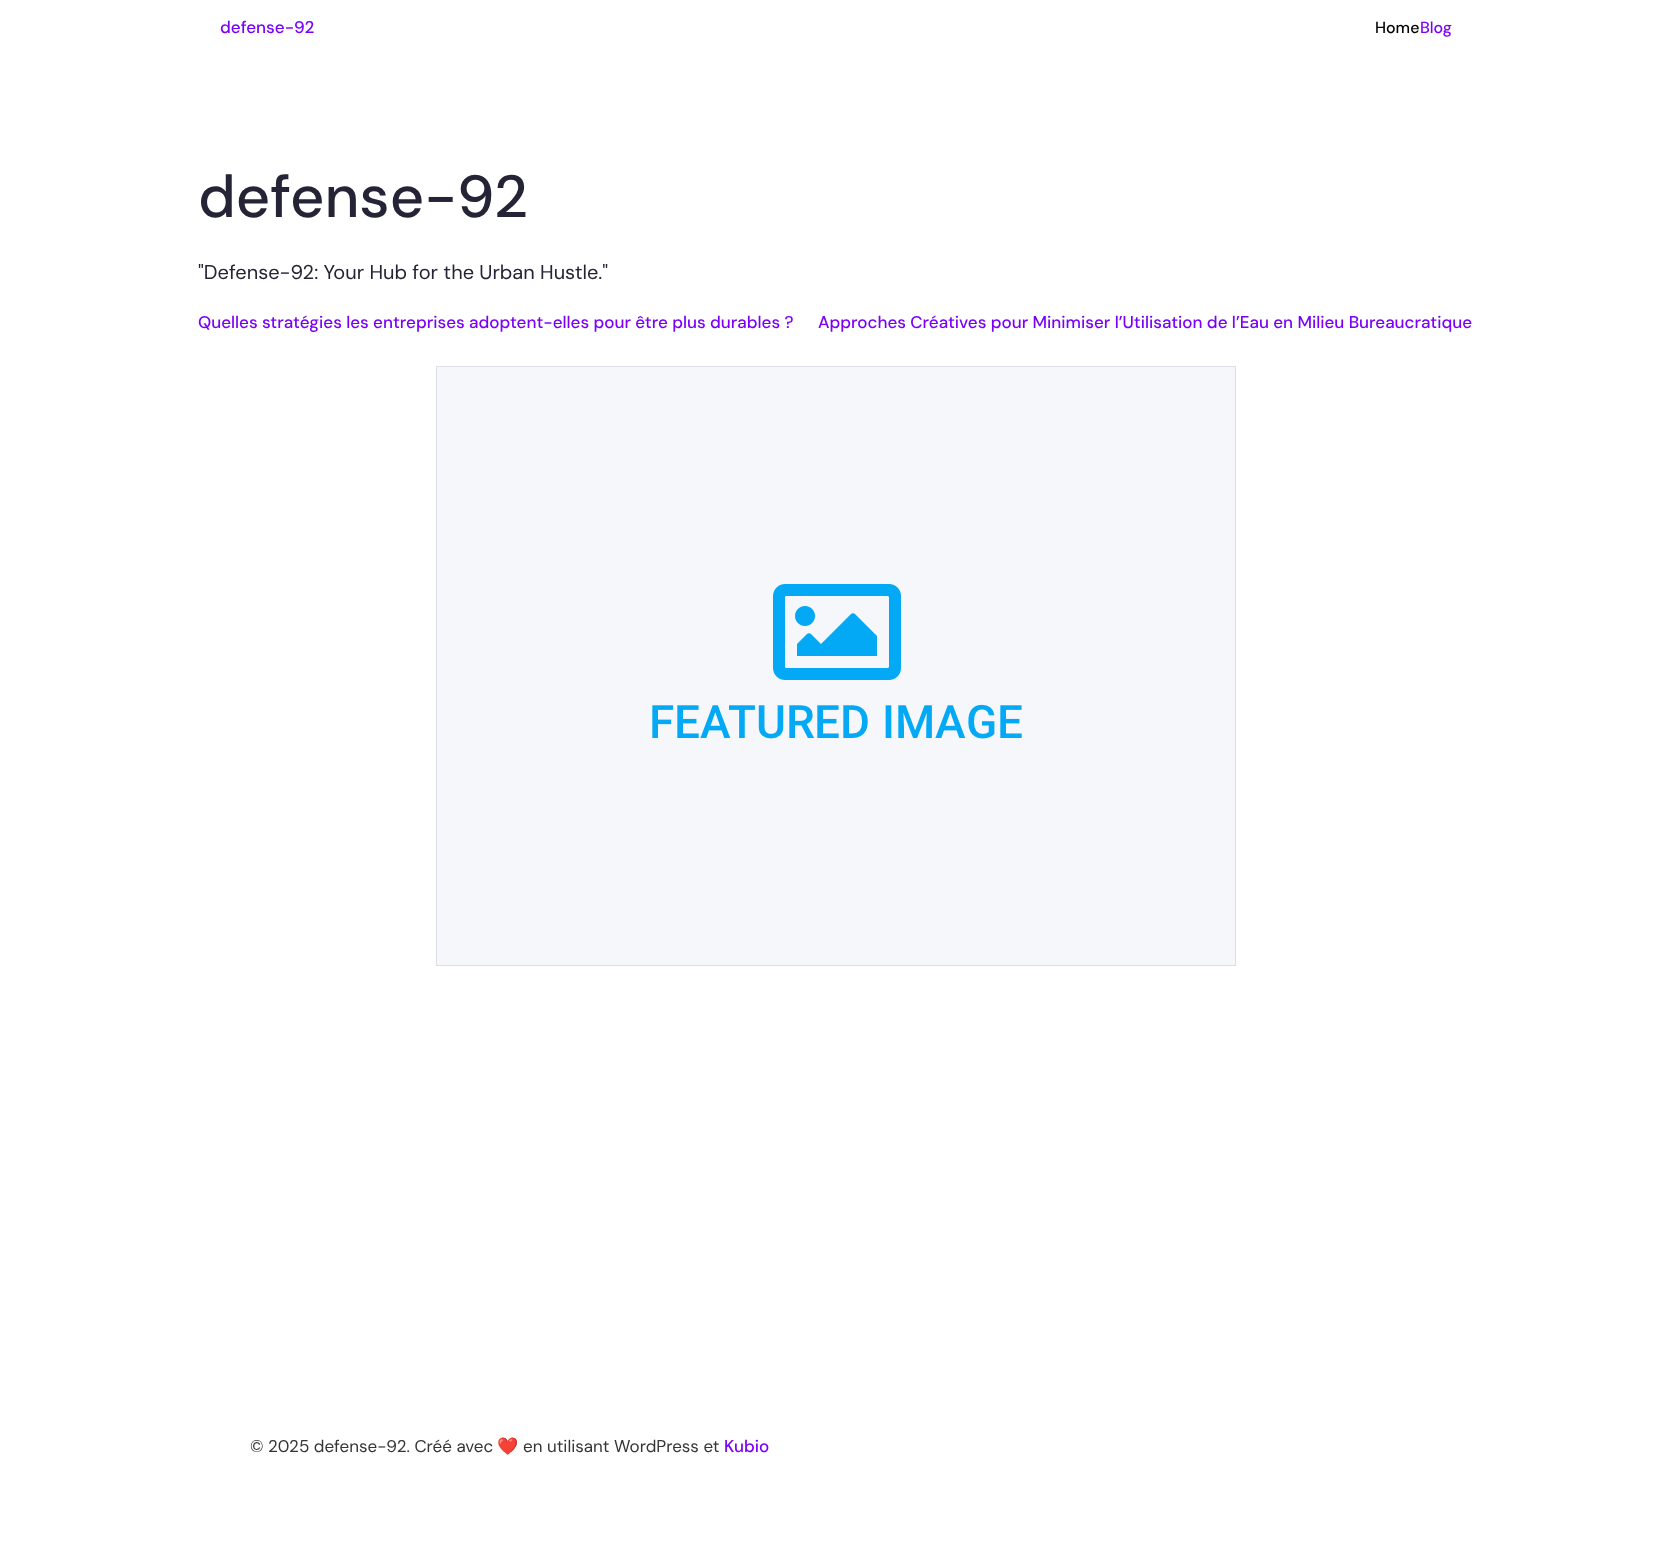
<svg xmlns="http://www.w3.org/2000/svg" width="1671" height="1567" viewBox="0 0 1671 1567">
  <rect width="100%" height="100%" fill="#fff"/>
  <image x="436" y="366" width="800" height="600" href="img/1.png"/>
  <text x="220" y="33" font-family="DM Sans" font-size="17" font-weight="500" fill="#7b00f7">defense-92</text>
  <text x="1375" y="33" font-family="DM Sans" font-size="16" font-weight="500" fill="#000">Home</text>
  <text x="1420" y="33" font-family="DM Sans" font-size="16" font-weight="500" fill="#7b00f7">Blog</text>
  <text x="198" y="217" font-family="DM Sans" font-size="59.5" font-weight="500" fill="#252436">defense-92</text>
  <text x="198" y="279" font-family="DM Sans" font-size="20" fill="#252436">"Defense-92: Your Hub for the Urban Hustle."</text>
  <g font-family="DM Sans" font-size="17" font-weight="500" fill="#7b00f7">
    <text x="198" y="328">Quelles stratégies les entreprises adoptent-elles pour être plus durables ?</text>
    <text x="818" y="328">Approches Créatives pour Minimiser l’Utilisation de l’Eau en Milieu Bureaucratique</text>
  </g>
  <text x="250" y="1452" font-family="DM Sans" font-size="17" fill="#353535">© 2025 defense-92. Créé avec</text>
  <text x="497" y="1452" font-family="Noto Color Emoji" font-size="17" fill="#353535">❤️</text>
  <text x="523" y="1452" font-family="DM Sans" font-size="17" fill="#353535">en utilisant WordPress et</text>
  <text x="724" y="1452" font-family="DM Sans" font-size="17" font-weight="500" fill="#7b00f7">Kubio</text>
</svg>
